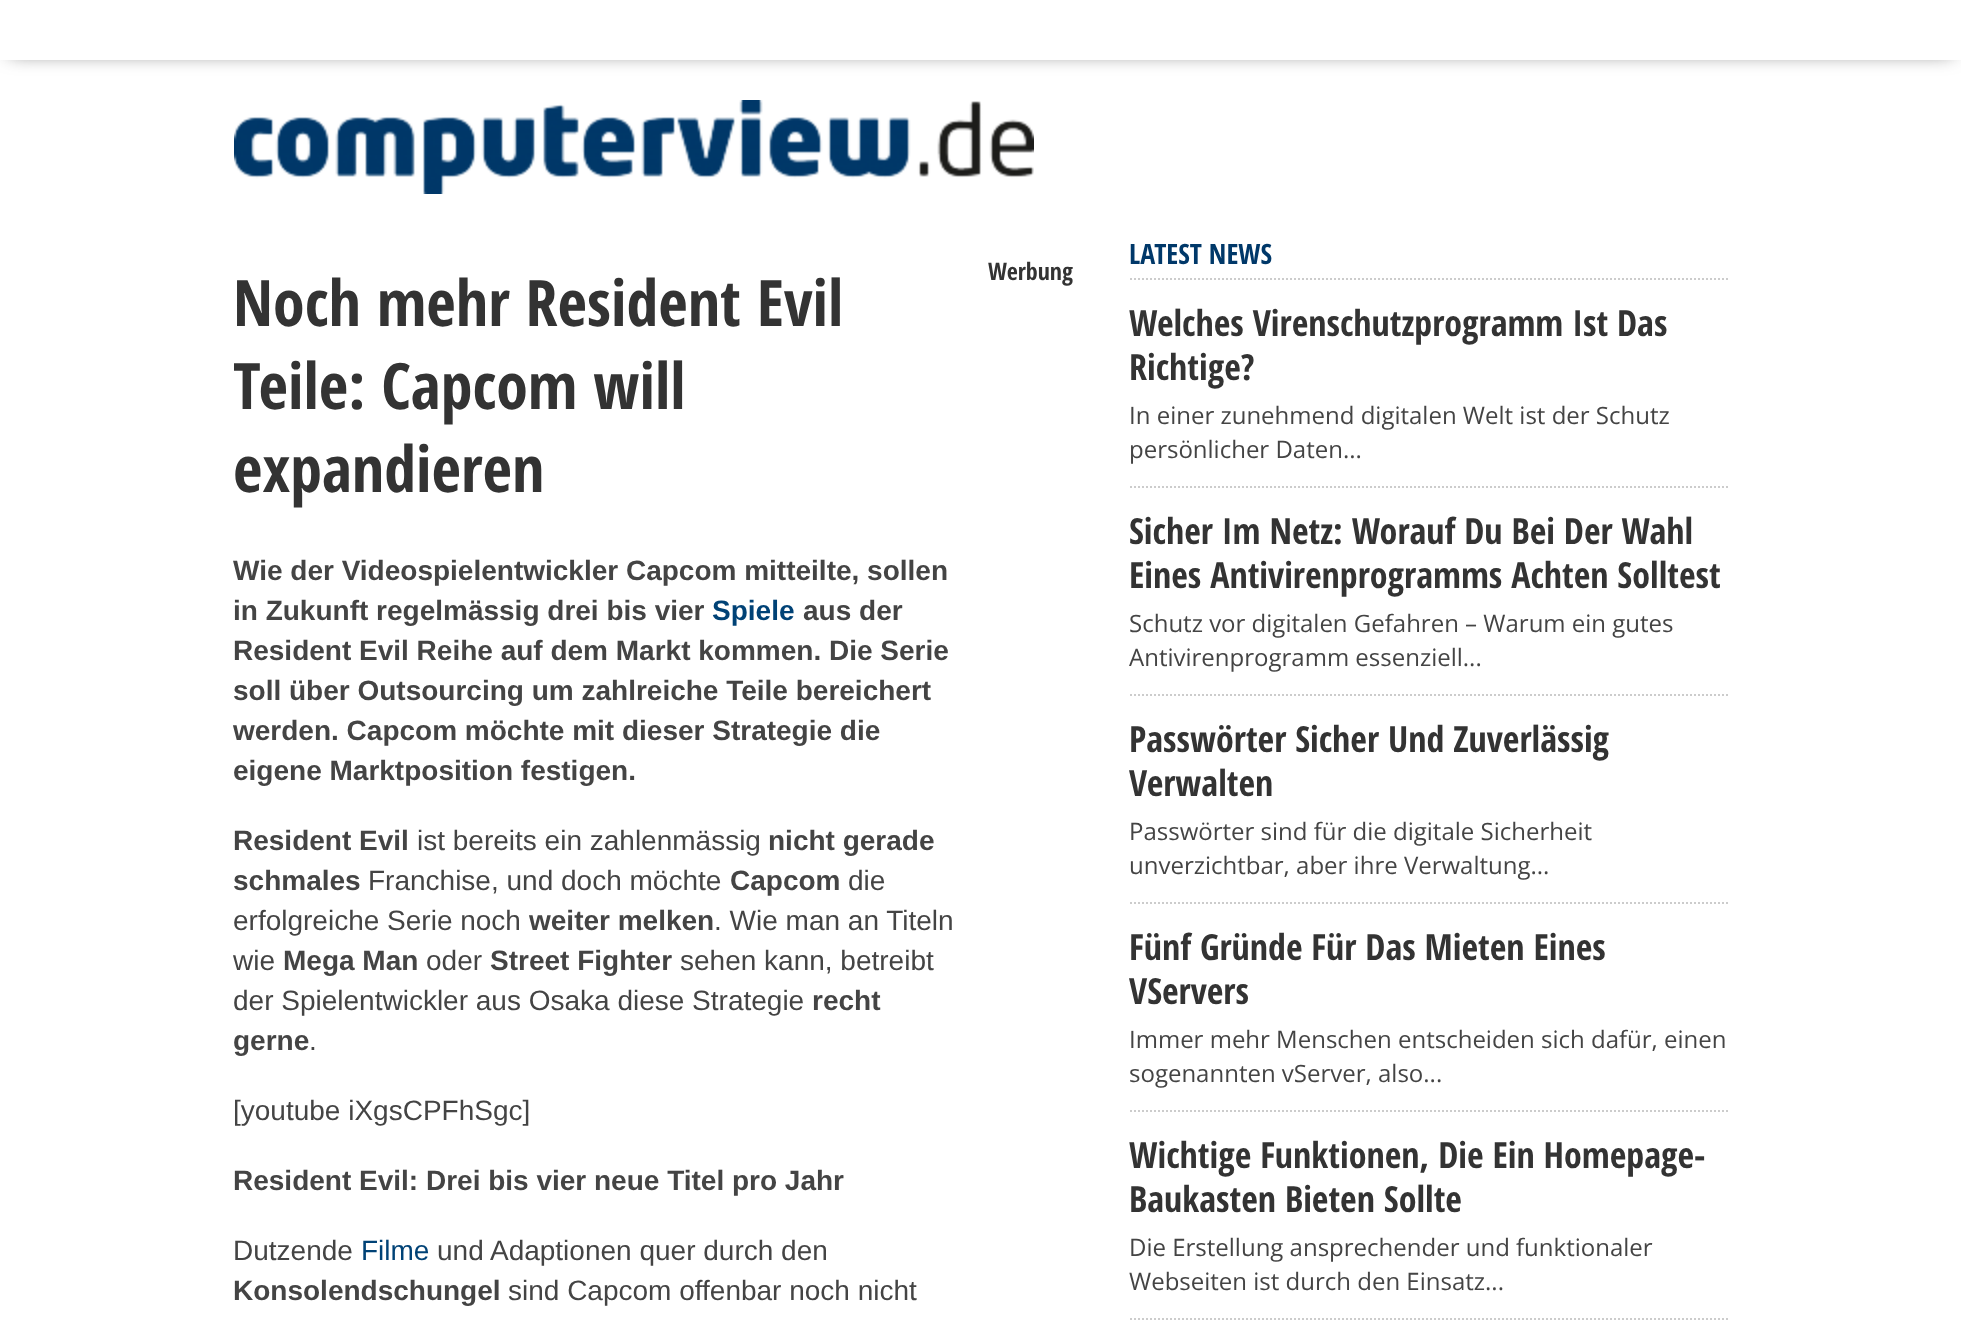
<svg xmlns="http://www.w3.org/2000/svg" width="1961" height="1321" viewBox="0 0 1961 1321">
  <defs>
    <clipPath id="clip1"><path d="M234 260h840v250H234z"/></clipPath>
  </defs>
  <rect width="100%" height="100%" fill="#fff"/>
  <path d="M10 12h1942v40H10z" fill="#555" filter="blur(10px)"/>
  <path d="M0 0h1961v60H0z" fill="#fff"/>
  <image x="234" y="100" width="800" height="94" href="img/1.png"/>
  <path d="M1130 279H1730" fill="none" stroke="#ccc" stroke-width="2" stroke-dasharray="2 2"/>
  <path d="M1130 487H1730" fill="none" stroke="#ccc" stroke-width="2" stroke-dasharray="2 2"/>
  <path d="M1130 695H1730" fill="none" stroke="#ccc" stroke-width="2" stroke-dasharray="2 2"/>
  <path d="M1130 903H1730" fill="none" stroke="#ccc" stroke-width="2" stroke-dasharray="2 2"/>
  <path d="M1130 1111H1730" fill="none" stroke="#ccc" stroke-width="2" stroke-dasharray="2 2"/>
  <path d="M1130 1319H1730" fill="none" stroke="#ccc" stroke-width="2" stroke-dasharray="2 2"/>
  <text x="988" y="280" font-family="Open Sans Condensed" font-size="24" font-weight="bold" fill="#333">Werbung</text>
  <text x="233" y="326" font-family="Open Sans Condensed" font-size="64" font-weight="bold" fill="#333">Noch mehr Resident Evil</text>
  <g clip-path="url(#clip1)">
    <text x="233" y="409" font-family="Open Sans Condensed" font-size="64" font-weight="bold" fill="#333">Teile: Capcom will</text>
  </g>
  <text x="233" y="492" font-family="Open Sans Condensed" font-size="64" font-weight="bold" fill="#333">expandieren</text>
  <g font-family="Liberation Sans" font-size="28" font-weight="bold" fill="#444">
    <text x="233" y="580">Wie der Videospielentwickler Capcom mitteilte, sollen</text>
    <text x="233" y="620">in Zukunft regelmässig drei bis vier</text>
  </g>
  <text x="712" y="620" font-family="Liberation Sans" font-size="28" font-weight="bold" fill="#004276">Spiele</text>
  <g font-family="Liberation Sans" font-size="28" font-weight="bold" fill="#444">
    <text x="803" y="620">aus der</text>
    <text x="233" y="660">Resident Evil Reihe auf dem Markt kommen. Die Serie</text>
    <text x="233" y="700">soll über Outsourcing um zahlreiche Teile bereichert</text>
    <text x="233" y="740">werden. Capcom möchte mit dieser Strategie die</text>
    <text x="233" y="780">eigene Marktposition festigen.</text>
    <text x="233" y="850">Resident Evil</text>
  </g>
  <text x="417" y="850" font-family="Liberation Sans" font-size="28" fill="#444">ist bereits ein zahlenmässig</text>
  <g font-family="Liberation Sans" font-size="28" font-weight="bold" fill="#444">
    <text x="768" y="850">nicht gerade</text>
    <text x="233" y="890">schmales</text>
  </g>
  <text x="368" y="890" font-family="Liberation Sans" font-size="28" fill="#444">Franchise, und doch möchte</text>
  <text x="730" y="890" font-family="Liberation Sans" font-size="28" font-weight="bold" fill="#444">Capcom</text>
  <g font-family="Liberation Sans" font-size="28" fill="#444">
    <text x="848" y="890">die</text>
    <text x="233" y="930">erfolgreiche Serie noch</text>
  </g>
  <text x="529" y="930" font-family="Liberation Sans" font-size="28" font-weight="bold" fill="#444">weiter melken</text>
  <g font-family="Liberation Sans" font-size="28" fill="#444">
    <text x="714" y="930">. Wie man an Titeln</text>
    <text x="233" y="970">wie</text>
  </g>
  <text x="283" y="970" font-family="Liberation Sans" font-size="28" font-weight="bold" fill="#444">Mega Man</text>
  <text x="426" y="970" font-family="Liberation Sans" font-size="28" fill="#444">oder</text>
  <text x="490" y="970" font-family="Liberation Sans" font-size="28" font-weight="bold" fill="#444">Street Fighter</text>
  <g font-family="Liberation Sans" font-size="28" fill="#444">
    <text x="680" y="970">sehen kann, betreibt</text>
    <text x="233" y="1010">der Spielentwickler aus Osaka diese Strategie</text>
  </g>
  <g font-family="Liberation Sans" font-size="28" font-weight="bold" fill="#444">
    <text x="812" y="1010">recht</text>
    <text x="233" y="1050">gerne</text>
  </g>
  <g font-family="Liberation Sans" font-size="28" fill="#444">
    <text x="309" y="1050">.</text>
    <text x="233" y="1120">[youtube iXgsCPFhSgc]</text>
  </g>
  <text x="233" y="1190" font-family="Liberation Sans" font-size="28" font-weight="bold" fill="#444">Resident Evil: Drei bis vier neue Titel pro Jahr</text>
  <text x="233" y="1260" font-family="Liberation Sans" font-size="28" fill="#444">Dutzende</text>
  <text x="361" y="1260" font-family="Liberation Sans" font-size="28" fill="#004276">Filme</text>
  <text x="437" y="1260" font-family="Liberation Sans" font-size="28" fill="#444">und Adaptionen quer durch den</text>
  <text x="233" y="1300" font-family="Liberation Sans" font-size="28" font-weight="bold" fill="#444">Konsolendschungel</text>
  <text x="508" y="1300" font-family="Liberation Sans" font-size="28" fill="#444">sind Capcom offenbar noch nicht</text>
  <text x="1129" y="264" font-family="Open Sans Condensed" font-size="28" font-weight="bold" fill="#003869">LATEST NEWS</text>
  <g font-family="Open Sans Condensed" font-size="36" font-weight="bold" fill="#333">
    <text x="1129" y="336">Welches Virenschutzprogramm Ist Das</text>
    <text x="1129" y="380">Richtige?</text>
  </g>
  <g font-family="Open Sans" font-size="24" fill="#444">
    <text x="1129" y="424">In einer zunehmend digitalen Welt ist der Schutz</text>
    <text x="1129" y="458">persönlicher Daten...</text>
  </g>
  <g font-family="Open Sans Condensed" font-size="36" font-weight="bold" fill="#333">
    <text x="1129" y="544">Sicher Im Netz: Worauf Du Bei Der Wahl</text>
    <text x="1129" y="588">Eines Antivirenprogramms Achten Solltest</text>
  </g>
  <g font-family="Open Sans" font-size="24" fill="#444">
    <text x="1129" y="632">Schutz vor digitalen Gefahren – Warum ein gutes</text>
    <text x="1129" y="666">Antivirenprogramm essenziell...</text>
  </g>
  <g font-family="Open Sans Condensed" font-size="36" font-weight="bold" fill="#333">
    <text x="1129" y="752">Passwörter Sicher Und Zuverlässig</text>
    <text x="1129" y="796">Verwalten</text>
  </g>
  <g font-family="Open Sans" font-size="24" fill="#444">
    <text x="1129" y="840">Passwörter sind für die digitale Sicherheit</text>
    <text x="1129" y="874">unverzichtbar, aber ihre Verwaltung...</text>
  </g>
  <g font-family="Open Sans Condensed" font-size="36" font-weight="bold" fill="#333">
    <text x="1129" y="960">Fünf Gründe Für Das Mieten Eines</text>
    <text x="1129" y="1004">VServers</text>
  </g>
  <g font-family="Open Sans" font-size="24" fill="#444">
    <text x="1129" y="1048">Immer mehr Menschen entscheiden sich dafür, einen</text>
    <text x="1129" y="1082">sogenannten vServer, also...</text>
  </g>
  <g font-family="Open Sans Condensed" font-size="36" font-weight="bold" fill="#333">
    <text x="1129" y="1168">Wichtige Funktionen, Die Ein Homepage-</text>
    <text x="1129" y="1212">Baukasten Bieten Sollte</text>
  </g>
  <g font-family="Open Sans" font-size="24" fill="#444">
    <text x="1129" y="1256">Die Erstellung ansprechender und funktionaler</text>
    <text x="1129" y="1290">Webseiten ist durch den Einsatz...</text>
  </g>
</svg>
